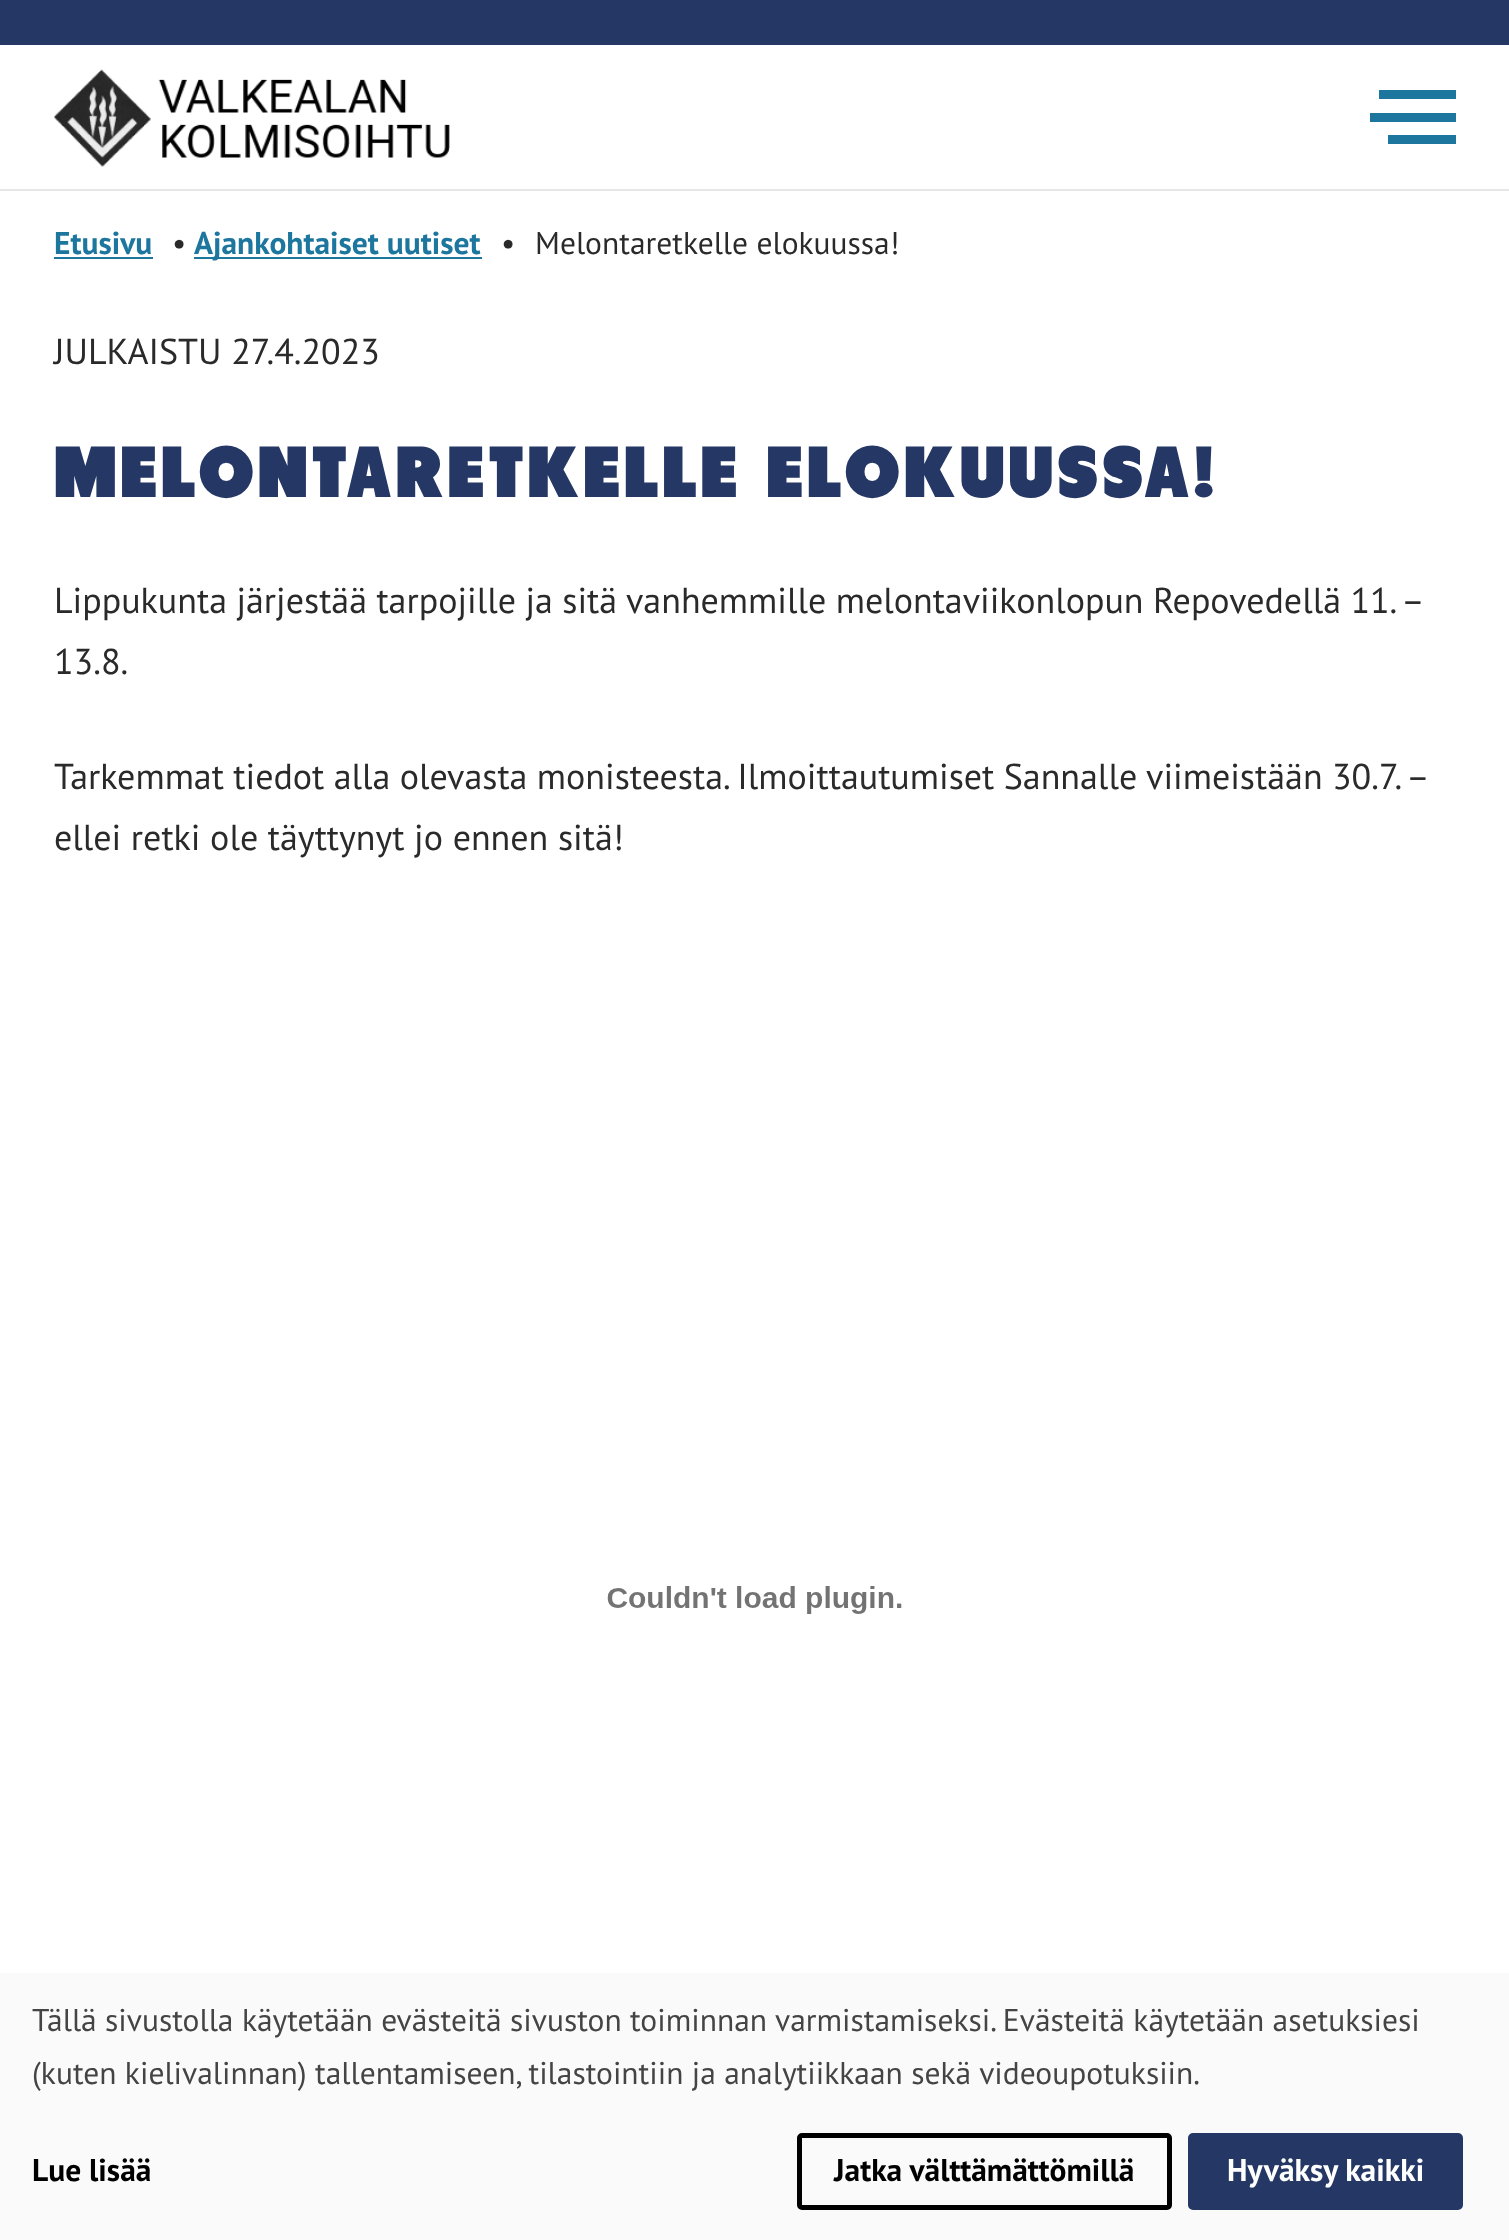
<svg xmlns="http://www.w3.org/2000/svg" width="1509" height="2240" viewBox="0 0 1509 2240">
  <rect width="100%" height="100%" fill="#fff"/>
  <path d="M0 0h1509v45H0z" fill="#253764"/>
  <path d="M0 189h1509v2H0z" fill="#e6e6e6"/>
  <image x="54" y="69" width="396" height="98" href="img/1.png"/>
  <path d="M1370 113h86v9H1370z" fill="#1c769d"/>
  <path d="M1379 90h77v9H1379z" fill="#1c769d"/>
  <path d="M1388 135h68v9H1388z" fill="#1c769d"/>
  <path d="M54 257h99v2H54z" fill="#1c769d"/>
  <path d="M194 257h288v2H194z" fill="#1c769d"/>
  <image x="607" y="1586" width="295" height="28" href="img/2.png"/>
  <path d="M0 1973h1509v267H0z" fill="#fafafa"/>
  <rect x="799.5" y="2135.5" width="370" height="72" rx="2.5" fill="none" stroke="#000" stroke-width="5"/>
  <rect x="1190.5" y="2135.5" width="270" height="72" rx="2.5" fill="#253764" stroke="#253764" stroke-width="5"/>
  <text x="54" y="254" font-family="PT Sans" font-size="31.5" font-weight="bold" fill="#1c769d">Etusivu</text>
  <text x="172" y="254" font-family="PT Sans" font-size="31.5" fill="#2a2a2a">•</text>
  <text x="194" y="254" font-family="PT Sans" font-size="31.5" font-weight="bold" fill="#1c769d">Ajankohtaiset uutiset</text>
  <g font-family="PT Sans" font-size="31.5" fill="#2a2a2a">
    <text x="501" y="254">•</text>
    <text x="535" y="254">Melontaretkelle elokuussa!</text>
  </g>
  <text x="54" y="364" font-family="PT Sans" font-size="36" fill="#2a2a2a">JULKAISTU 27.4.2023</text>
  <text x="54" y="497" font-family="'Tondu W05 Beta'" font-size="72" letter-spacing="3.6" fill="#253764">MELONTARETKELLE ELOKUUSSA!</text>
  <g font-family="PT Sans" font-size="36" fill="#2a2a2a">
    <text x="54" y="613" word-spacing="-0.25">Lippukunta järjestää tarpojille ja sitä vanhemmille melontaviikonlopun Repovedellä 11. –</text>
    <text x="54" y="674">13.8.</text>
    <text x="54" y="789" word-spacing="-0.25">Tarkemmat tiedot alla olevasta monisteesta. Ilmoittautumiset Sannalle viimeistään 30.7. –</text>
    <text x="54" y="850">ellei retki ole täyttynyt jo ennen sitä!</text>
  </g>
  <g font-family="PT Sans" font-size="31.5" fill="#444">
    <text x="32" y="2031">Tällä sivustolla käytetään evästeitä sivuston toiminnan varmistamiseksi. Evästeitä käytetään asetuksiesi</text>
    <text x="32" y="2084">(kuten kielivalinnan) tallentamiseen, tilastointiin ja analytiikkaan sekä videoupotuksiin.</text>
  </g>
  <g font-family="PT Sans" font-size="31.5" font-weight="bold" fill="#000">
    <text x="32" y="2181">Lue lisää</text>
    <text x="834" y="2181">Jatka välttämättömillä</text>
  </g>
  <text x="1227" y="2181" font-family="PT Sans" font-size="31.5" font-weight="bold" fill="#fff">Hyväksy kaikki</text>
</svg>
